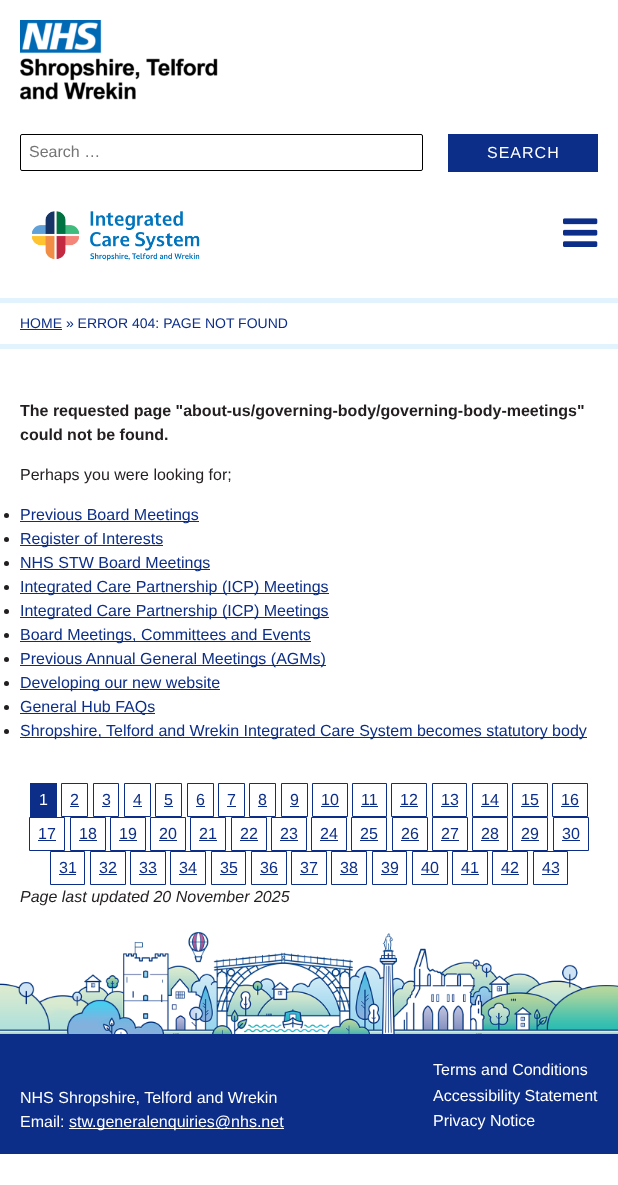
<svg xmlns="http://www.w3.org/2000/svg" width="618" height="1185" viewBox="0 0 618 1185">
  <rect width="100%" height="100%" fill="#fff"/>
  <image x="20" y="20" width="198" height="80" href="img/1.png"/>
  <rect x="20.5" y="134.5" width="402" height="36" rx="1.5" fill="none" stroke="#000"/>
  <path d="M448 134h150v38H448z" fill="#0c2e88"/>
  <image x="32" y="211" width="168" height="50" href="img/2.png"/>
  <image x="563" y="218" width="35" height="29" href="img/3.png"/>
  <path d="M0 298h618v5H0z" fill="#e2f3fd"/>
  <path d="M0 344h618v5H0z" fill="#e2f3fd"/>
  <path d="M20 329h42v1H20z" fill="#0c2e88"/>
  <circle cx="6.5" cy="515.5" r="2.5" fill="#231f20"/>
  <path d="M20 521h179v1H20z" fill="#0c2e88"/>
  <circle cx="6.5" cy="539.5" r="2.5" fill="#231f20"/>
  <path d="M20 545h143v1H20z" fill="#0c2e88"/>
  <circle cx="6.5" cy="563.5" r="2.5" fill="#231f20"/>
  <path d="M20 569h190v1H20z" fill="#0c2e88"/>
  <circle cx="6.5" cy="587.5" r="2.5" fill="#231f20"/>
  <path d="M20 593h309v1H20z" fill="#0c2e88"/>
  <circle cx="6.5" cy="611.5" r="2.5" fill="#231f20"/>
  <path d="M20 617h309v1H20z" fill="#0c2e88"/>
  <circle cx="6.5" cy="635.5" r="2.5" fill="#231f20"/>
  <path d="M20 641h291v1H20z" fill="#0c2e88"/>
  <circle cx="6.5" cy="659.5" r="2.5" fill="#231f20"/>
  <path d="M20 665h306v1H20z" fill="#0c2e88"/>
  <circle cx="6.5" cy="683.5" r="2.5" fill="#231f20"/>
  <path d="M20 689h200v1H20z" fill="#0c2e88"/>
  <circle cx="6.5" cy="707.5" r="2.5" fill="#231f20"/>
  <path d="M20 713h135v1H20z" fill="#0c2e88"/>
  <circle cx="6.5" cy="731.5" r="2.5" fill="#231f20"/>
  <path d="M20 737h567v1H20z" fill="#0c2e88"/>
  <path d="M30 783h27v34H30z" fill="#0c2e88"/>
  <path d="M61.5 783.5h26v33H61.5z" fill="none" stroke="#0c2e88"/>
  <path d="M70 806h9v1H70z" fill="#0c2e88"/>
  <path d="M93.5 783.5h25v33H93.5z" fill="none" stroke="#0c2e88"/>
  <path d="M102 806h8v1H102z" fill="#0c2e88"/>
  <path d="M124.5 783.5h26v33H124.5z" fill="none" stroke="#0c2e88"/>
  <path d="M133 806h9v1H133z" fill="#0c2e88"/>
  <path d="M155.5 783.5h26v33H155.5z" fill="none" stroke="#0c2e88"/>
  <path d="M164 806h9v1H164z" fill="#0c2e88"/>
  <path d="M187.5 783.5h26v33H187.5z" fill="none" stroke="#0c2e88"/>
  <path d="M196 806h9v1H196z" fill="#0c2e88"/>
  <path d="M218.5 783.5h26v33H218.5z" fill="none" stroke="#0c2e88"/>
  <path d="M227 806h9v1H227z" fill="#0c2e88"/>
  <path d="M249.5 783.5h26v33H249.5z" fill="none" stroke="#0c2e88"/>
  <path d="M258 806h9v1H258z" fill="#0c2e88"/>
  <path d="M281.5 783.5h26v33H281.5z" fill="none" stroke="#0c2e88"/>
  <path d="M290 806h9v1H290z" fill="#0c2e88"/>
  <path d="M312.5 783.5h35v33H312.5z" fill="none" stroke="#0c2e88"/>
  <path d="M321 806h18v1H321z" fill="#0c2e88"/>
  <path d="M352.5 783.5h34v33H352.5z" fill="none" stroke="#0c2e88"/>
  <path d="M361 806h17v1H361z" fill="#0c2e88"/>
  <path d="M391.5 783.5h35v33H391.5z" fill="none" stroke="#0c2e88"/>
  <path d="M400 806h18v1H400z" fill="#0c2e88"/>
  <path d="M432.5 783.5h34v33H432.5z" fill="none" stroke="#0c2e88"/>
  <path d="M441 806h17v1H441z" fill="#0c2e88"/>
  <path d="M472.5 783.5h35v33H472.5z" fill="none" stroke="#0c2e88"/>
  <path d="M481 806h18v1H481z" fill="#0c2e88"/>
  <path d="M512.5 783.5h35v33H512.5z" fill="none" stroke="#0c2e88"/>
  <path d="M521 806h18v1H521z" fill="#0c2e88"/>
  <path d="M552.5 783.5h35v33H552.5z" fill="none" stroke="#0c2e88"/>
  <path d="M561 806h18v1H561z" fill="#0c2e88"/>
  <path d="M29.5 817.5h35v33H29.5z" fill="none" stroke="#0c2e88"/>
  <path d="M38 840h18v1H38z" fill="#0c2e88"/>
  <path d="M70.5 817.5h35v33H70.5z" fill="none" stroke="#0c2e88"/>
  <path d="M79 840h18v1H79z" fill="#0c2e88"/>
  <path d="M110.5 817.5h35v33H110.5z" fill="none" stroke="#0c2e88"/>
  <path d="M119 840h18v1H119z" fill="#0c2e88"/>
  <path d="M150.5 817.5h35v33H150.5z" fill="none" stroke="#0c2e88"/>
  <path d="M159 840h18v1H159z" fill="#0c2e88"/>
  <path d="M190.5 817.5h35v33H190.5z" fill="none" stroke="#0c2e88"/>
  <path d="M199 840h18v1H199z" fill="#0c2e88"/>
  <path d="M231.5 817.5h35v33H231.5z" fill="none" stroke="#0c2e88"/>
  <path d="M240 840h18v1H240z" fill="#0c2e88"/>
  <path d="M271.5 817.5h35v33H271.5z" fill="none" stroke="#0c2e88"/>
  <path d="M280 840h18v1H280z" fill="#0c2e88"/>
  <path d="M311.5 817.5h35v33H311.5z" fill="none" stroke="#0c2e88"/>
  <path d="M320 840h18v1H320z" fill="#0c2e88"/>
  <path d="M351.5 817.5h35v33H351.5z" fill="none" stroke="#0c2e88"/>
  <path d="M360 840h18v1H360z" fill="#0c2e88"/>
  <path d="M392.5 817.5h35v33H392.5z" fill="none" stroke="#0c2e88"/>
  <path d="M401 840h18v1H401z" fill="#0c2e88"/>
  <path d="M432.5 817.5h35v33H432.5z" fill="none" stroke="#0c2e88"/>
  <path d="M441 840h18v1H441z" fill="#0c2e88"/>
  <path d="M472.5 817.5h35v33H472.5z" fill="none" stroke="#0c2e88"/>
  <path d="M481 840h18v1H481z" fill="#0c2e88"/>
  <path d="M512.5 817.5h35v33H512.5z" fill="none" stroke="#0c2e88"/>
  <path d="M521 840h18v1H521z" fill="#0c2e88"/>
  <path d="M553.5 817.5h35v33H553.5z" fill="none" stroke="#0c2e88"/>
  <path d="M562 840h18v1H562z" fill="#0c2e88"/>
  <path d="M50.5 851.5h34v33H50.5z" fill="none" stroke="#0c2e88"/>
  <path d="M59 874h17v1H59z" fill="#0c2e88"/>
  <path d="M90.5 851.5h35v33H90.5z" fill="none" stroke="#0c2e88"/>
  <path d="M99 874h18v1H99z" fill="#0c2e88"/>
  <path d="M130.5 851.5h35v33H130.5z" fill="none" stroke="#0c2e88"/>
  <path d="M139 874h18v1H139z" fill="#0c2e88"/>
  <path d="M170.5 851.5h35v33H170.5z" fill="none" stroke="#0c2e88"/>
  <path d="M179 874h18v1H179z" fill="#0c2e88"/>
  <path d="M211.5 851.5h34v33H211.5z" fill="none" stroke="#0c2e88"/>
  <path d="M220 874h17v1H220z" fill="#0c2e88"/>
  <path d="M251.5 851.5h35v33H251.5z" fill="none" stroke="#0c2e88"/>
  <path d="M260 874h18v1H260z" fill="#0c2e88"/>
  <path d="M291.5 851.5h35v33H291.5z" fill="none" stroke="#0c2e88"/>
  <path d="M300 874h18v1H300z" fill="#0c2e88"/>
  <path d="M331.5 851.5h35v33H331.5z" fill="none" stroke="#0c2e88"/>
  <path d="M340 874h18v1H340z" fill="#0c2e88"/>
  <path d="M372.5 851.5h34v33H372.5z" fill="none" stroke="#0c2e88"/>
  <path d="M381 874h17v1H381z" fill="#0c2e88"/>
  <path d="M412.5 851.5h35v33H412.5z" fill="none" stroke="#0c2e88"/>
  <path d="M421 874h18v1H421z" fill="#0c2e88"/>
  <path d="M452.5 851.5h35v33H452.5z" fill="none" stroke="#0c2e88"/>
  <path d="M461 874h18v1H461z" fill="#0c2e88"/>
  <path d="M492.5 851.5h35v33H492.5z" fill="none" stroke="#0c2e88"/>
  <path d="M501 874h18v1H501z" fill="#0c2e88"/>
  <path d="M533.5 851.5h34v33H533.5z" fill="none" stroke="#0c2e88"/>
  <path d="M542 874h17v1H542z" fill="#0c2e88"/>
  <image x="0" y="932" width="618" height="102" href="img/4.png"/>
  <path d="M0 1034h618v120H0z" fill="#0c2e88"/>
  <path d="M69 1128h215v1H69z" fill="#fff"/>
  <text x="29" y="157" font-family="Liberation Sans" font-size="16" fill="#757575">Search …</text>
  <text x="487" y="158" font-family="Liberation Sans" font-size="16" letter-spacing="1" fill="#fff">SEARCH</text>
  <text x="20" y="328" font-family="Liberation Sans" font-size="14" fill="#0c2e88">HOME » ERROR 404: PAGE NOT FOUND</text>
  <g font-family="Liberation Sans" font-size="16" font-weight="bold" fill="#231f20">
    <text x="20" y="416">The requested page "about-us/governing-body/governing-body-meetings"</text>
    <text x="20" y="440">could not be found.</text>
  </g>
  <text x="20" y="480" font-family="Liberation Sans" font-size="16" fill="#231f20">Perhaps you were looking for;</text>
  <g font-family="Liberation Sans" font-size="16" fill="#0c2e88">
    <text x="20" y="520">Previous Board Meetings</text>
    <text x="20" y="544">Register of Interests</text>
    <text x="20" y="568">NHS STW Board Meetings</text>
    <text x="20" y="592">Integrated Care Partnership (ICP) Meetings</text>
    <text x="20" y="616">Integrated Care Partnership (ICP) Meetings</text>
    <text x="20" y="640">Board Meetings, Committees and Events</text>
    <text x="20" y="664">Previous Annual General Meetings (AGMs)</text>
    <text x="20" y="688">Developing our new website</text>
    <text x="20" y="712">General Hub FAQs</text>
    <text x="20" y="736">Shropshire, Telford and Wrekin Integrated Care System becomes statutory body</text>
  </g>
  <text x="39" y="805" font-family="Liberation Sans" font-size="16" fill="#fff">1</text>
  <g font-family="Liberation Sans" font-size="16" fill="#0c2e88">
    <text x="70" y="805">2</text>
    <text x="102" y="805">3</text>
    <text x="133" y="805">4</text>
    <text x="164" y="805">5</text>
    <text x="196" y="805">6</text>
    <text x="227" y="805">7</text>
    <text x="258" y="805">8</text>
    <text x="290" y="805">9</text>
    <text x="321" y="805">10</text>
    <text x="361" y="805">11</text>
    <text x="400" y="805">12</text>
    <text x="441" y="805">13</text>
    <text x="481" y="805">14</text>
    <text x="521" y="805">15</text>
    <text x="561" y="805">16</text>
    <text x="38" y="839">17</text>
    <text x="79" y="839">18</text>
    <text x="119" y="839">19</text>
    <text x="159" y="839">20</text>
    <text x="199" y="839">21</text>
    <text x="240" y="839">22</text>
    <text x="280" y="839">23</text>
    <text x="320" y="839">24</text>
    <text x="360" y="839">25</text>
    <text x="401" y="839">26</text>
    <text x="441" y="839">27</text>
    <text x="481" y="839">28</text>
    <text x="521" y="839">29</text>
    <text x="562" y="839">30</text>
    <text x="59" y="873">31</text>
    <text x="99" y="873">32</text>
    <text x="139" y="873">33</text>
    <text x="179" y="873">34</text>
    <text x="220" y="873">35</text>
    <text x="260" y="873">36</text>
    <text x="300" y="873">37</text>
    <text x="340" y="873">38</text>
    <text x="381" y="873">39</text>
    <text x="421" y="873">40</text>
    <text x="461" y="873">41</text>
    <text x="501" y="873">42</text>
    <text x="542" y="873">43</text>
  </g>
  <text x="20" y="902" font-family="Liberation Sans" font-size="16" font-style="italic" fill="#231f20">Page last updated 20 November 2025</text>
  <g font-family="Liberation Sans" font-size="16" fill="#fff">
    <text x="20" y="1103">NHS Shropshire, Telford and Wrekin</text>
    <text x="20" y="1127">Email:</text>
    <text x="69" y="1127">stw.generalenquiries@nhs.net</text>
    <text x="433" y="1075">Terms and Conditions</text>
    <text x="433" y="1101">Accessibility Statement</text>
    <text x="433" y="1126">Privacy Notice</text>
  </g>
</svg>
